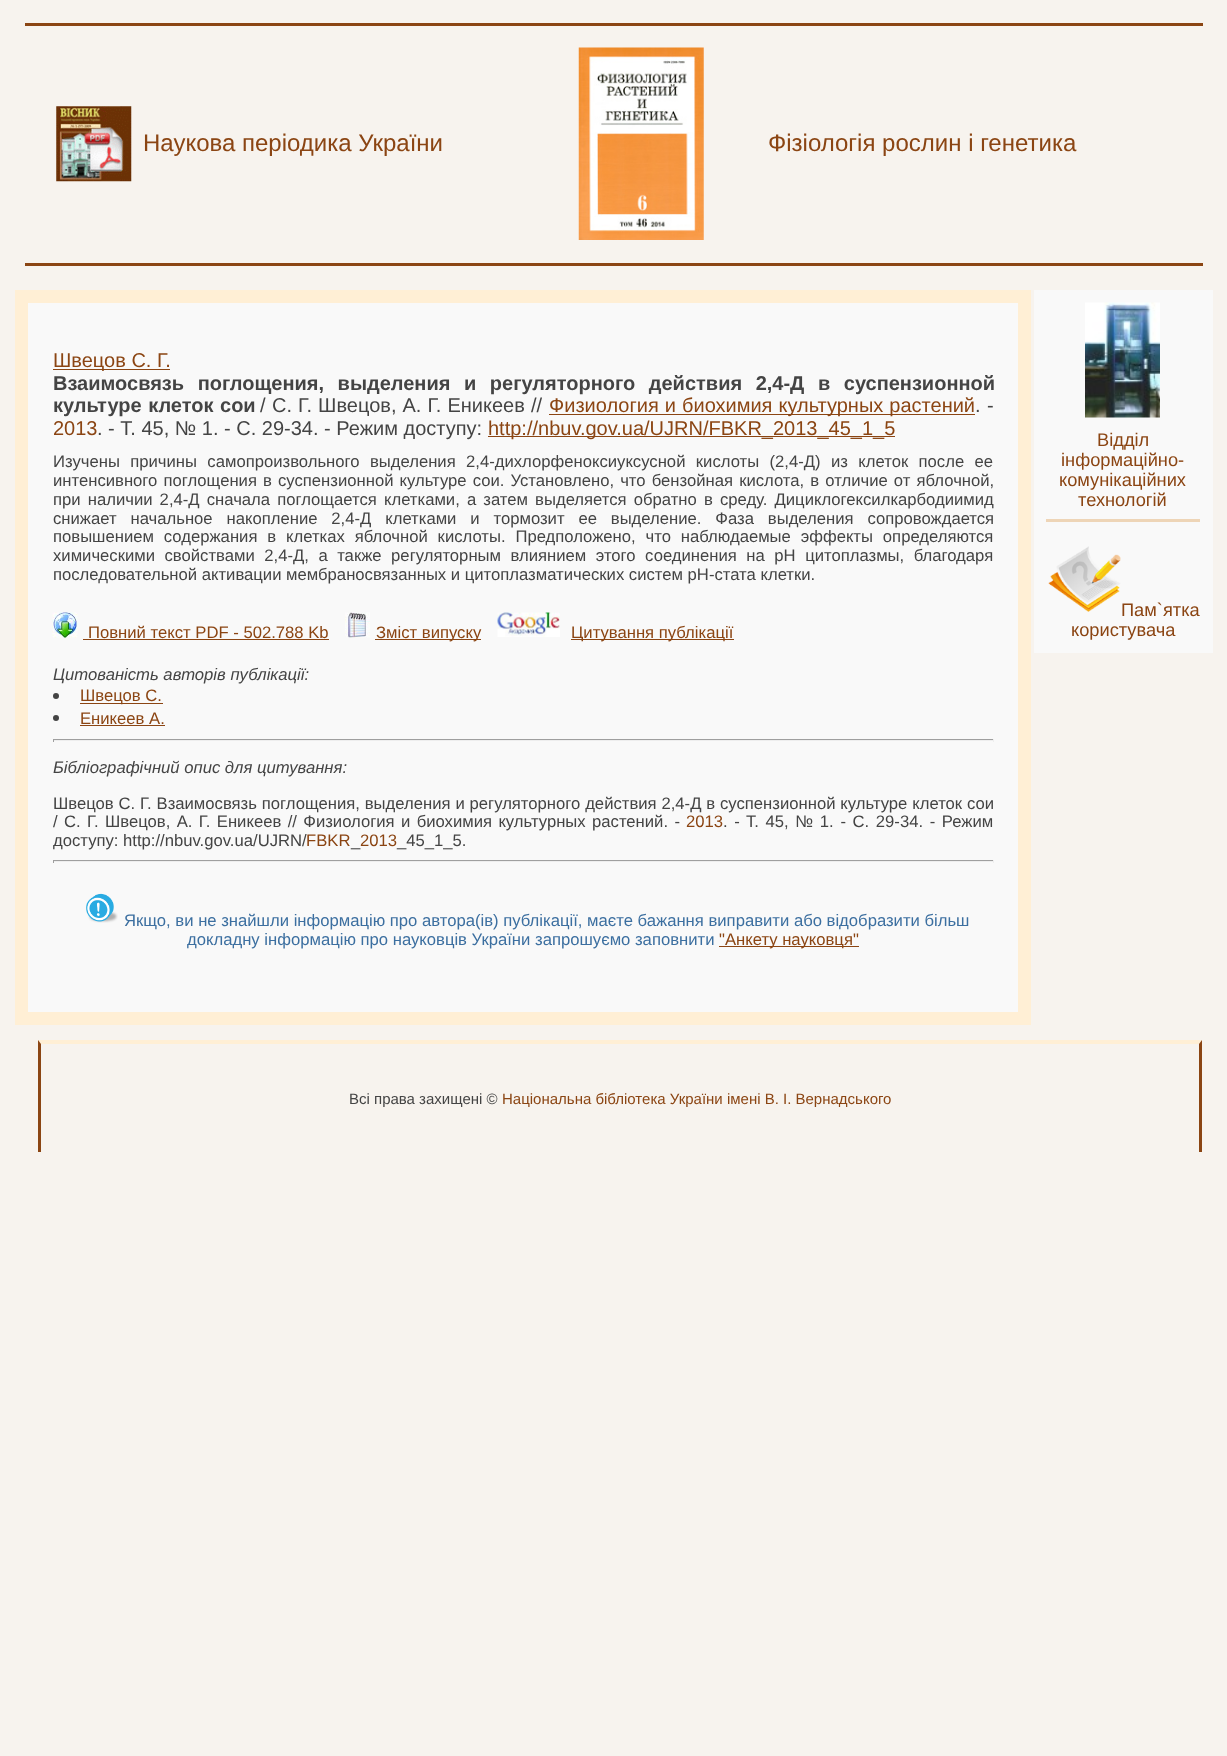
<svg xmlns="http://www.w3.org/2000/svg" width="1227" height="1756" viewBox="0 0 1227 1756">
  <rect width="100%" height="100%" fill="#f7f3ee"/>
  <path d="M25 23h1178v3H25z" fill="#8b4513"/>
  <image x="56" y="106" width="76" height="76" href="img/1.png"/>
  <image x="578" y="47" width="126" height="193" href="img/2.png"/>
  <path d="M25 263h1178v3H25z" fill="#8b4513"/>
  <path d="M21.5 296.5h1003v722H21.5z" fill="#f9f9f9" stroke="#ffefd5" stroke-width="13"/>
  <path d="M53 369h117v1H53z" fill="#8b4513"/>
  <path d="M549 414h426v1H549z" fill="#8b4513"/>
  <path d="M488 436h407v1H488z" fill="#8b4513"/>
  <image x="52" y="612" width="26" height="26" href="img/3.png"/>
  <path d="M83 639h246v1H83z" fill="#8b4513"/>
  <image x="345" y="612" width="25" height="26" href="img/4.png"/>
  <path d="M375 639h106v1H375z" fill="#8b4513"/>
  <image x="497" y="612" width="63" height="25" href="img/5.png"/>
  <path d="M571 639h163v1H571z" fill="#8b4513"/>
  <circle cx="56" cy="696" r="3" fill="#444"/>
  <path d="M80 703h83v1H80z" fill="#8b4513"/>
  <circle cx="56" cy="718" r="3" fill="#444"/>
  <path d="M80 725h85v1H80z" fill="#8b4513"/>
  <path d="M53 739h941v1H53z" fill="#9f9f9f"/>
  <path d="M993 739h1v3H993z" fill="#eee"/>
  <path d="M53 740h941v1H53z" fill="#eee"/>
  <path d="M53 739h1v3H53z" fill="#9f9f9f"/>
  <path d="M53 860h941v1H53z" fill="#9f9f9f"/>
  <path d="M993 860h1v3H993z" fill="#eee"/>
  <path d="M53 861h941v1H53z" fill="#eee"/>
  <path d="M53 860h1v3H53z" fill="#9f9f9f"/>
  <image x="86" y="893" width="32" height="30" href="img/6.png"/>
  <path d="M719 946h140v1H719z" fill="#8b4513"/>
  <path d="M1034 290h179v363H1034z" fill="#f9f9f9"/>
  <image x="1085" y="302" width="75" height="116" href="img/7.png"/>
  <path d="M1046 519h154v3H1046z" fill="#eed5b7"/>
  <image x="1048" y="546" width="73" height="66" href="img/8.png"/>
  <path d="M38 1040H1202L1199 1044H41Z" fill="#ffefd5"/>
  <path d="M1202 1040V1152H1199V1044Z" fill="#8b4513"/>
  <path d="M38 1152V1040L41 1044V1152Z" fill="#8b4513"/>
  <g font-family="Liberation Sans" font-size="24" fill="#8b4513">
    <text x="143" y="151">Наукова періодика України</text>
    <text x="768" y="151">Фізіологія рослин і генетика</text>
  </g>
  <text x="53" y="367" font-family="Liberation Sans" font-size="20" fill="#8b4513">Швецов С. Г.</text>
  <g font-family="Liberation Sans" font-size="20" font-weight="bold" fill="#444">
    <text x="53" y="390" word-spacing="8">Взаимосвязь поглощения, выделения и регуляторного действия 2,4-Д в суспензионной</text>
    <text x="53" y="412" word-spacing="1">культуре клеток сои</text>
  </g>
  <g font-family="Liberation Sans" font-size="20" fill="#444">
    <text x="260" y="412">/</text>
    <text x="272" y="412" word-spacing="0.5">С. Г. Швецов, А. Г. Еникеев //</text>
  </g>
  <text x="549" y="412" word-spacing="0.5" font-family="Liberation Sans" font-size="20" fill="#8b4513">Физиология и биохимия культурных растений</text>
  <text x="975" y="412" word-spacing="1" font-family="Liberation Sans" font-size="20" fill="#444">. -</text>
  <text x="53" y="435" font-family="Liberation Sans" font-size="20" fill="#8b4513">2013</text>
  <text x="97" y="435" font-family="Liberation Sans" font-size="20" fill="#444">. - Т. 45, № 1. - С. 29-34. - Режим доступу:</text>
  <text x="488" y="435" font-family="Liberation Sans" font-size="20" fill="#8b4513">http://nbuv.gov.ua/UJRN/FBKR_2013_45_1_5</text>
  <g font-family="Liberation Sans" font-size="16.67" fill="#444">
    <text x="53" y="467" word-spacing="5.75">Изучены причины самопроизвольного выделения 2,4-дихлорфеноксиуксусной кислоты (2,4-Д) из клеток после ее</text>
    <text x="53" y="486" word-spacing="1.5">интенсивного поглощения в суспензионной культуре сои. Установлено, что бензойная кислота, в отличие от яблочной,</text>
    <text x="53" y="505" word-spacing="2.5">при наличии 2,4-Д сначала поглощается клетками, а затем выделяется обратно в среду. Дициклогексилкарбодиимид</text>
    <text x="53" y="524" word-spacing="9.25">снижает начальное накопление 2,4-Д клетками и тормозит ее выделение. Фаза выделения сопровождается</text>
    <text x="53" y="542" word-spacing="5.25">повышением содержания в клетках яблочной кислоты. Предположено, что наблюдаемые эффекты определяются</text>
    <text x="53" y="561" word-spacing="4.9">химическими свойствами 2,4-Д, а также регуляторным влиянием этого соединения на pH цитоплазмы, благодаря</text>
    <text x="53" y="580">последовательной активации мембраносвязанных и цитоплазматических систем pH-стата клетки.</text>
  </g>
  <g font-family="Liberation Sans" font-size="16.67" fill="#8b4513">
    <text x="88" y="638">Повний текст PDF - 502.788 Kb</text>
    <text x="376" y="638">Зміст випуску</text>
    <text x="571" y="638">Цитування публікації</text>
  </g>
  <text x="53" y="680" font-family="Liberation Sans" font-size="16.67" font-style="italic" fill="#444">Цитованість авторів публікації:</text>
  <g font-family="Liberation Sans" font-size="16.67" fill="#8b4513">
    <text x="80" y="701">Швецов С.</text>
    <text x="80" y="724">Еникеев А.</text>
  </g>
  <text x="53" y="773" font-family="Liberation Sans" font-size="16.67" font-style="italic" fill="#444">Бібліографічний опис для цитування:</text>
  <g font-family="Liberation Sans" font-size="16.67" fill="#444">
    <text x="53" y="809" word-spacing="0.25">Швецов С. Г. Взаимосвязь поглощения, выделения и регуляторного действия 2,4-Д в суспензионной культуре клеток сои</text>
    <text x="53" y="827">/</text>
    <text x="64" y="827" word-spacing="1.75">С. Г. Швецов, А. Г. Еникеев // Физиология и биохимия культурных растений. -</text>
  </g>
  <text x="686" y="827" font-family="Liberation Sans" font-size="16.67" fill="#8b4513">2013</text>
  <g font-family="Liberation Sans" font-size="16.67" fill="#444">
    <text x="723" y="827" word-spacing="2">. -</text>
    <text x="746" y="827" word-spacing="2">Т. 45, № 1. - С. 29-34. - Режим</text>
    <text x="53" y="846">доступу: http://nbuv.gov.ua/UJRN/</text>
  </g>
  <text x="306" y="846" font-family="Liberation Sans" font-size="16.67" fill="#8b4513">FBKR</text>
  <text x="351" y="846" font-family="Liberation Sans" font-size="16.67" fill="#444">_</text>
  <text x="360" y="846" font-family="Liberation Sans" font-size="16.67" fill="#8b4513">2013</text>
  <text x="397" y="846" font-family="Liberation Sans" font-size="16.67" fill="#444">_45_1_5.</text>
  <g font-family="Liberation Sans" font-size="16.67" fill="#3c6fa0">
    <text x="124" y="926">Якщо, ви не знайшли інформацію про автора(ів) публікації, маєте бажання виправити або відобразити більш</text>
    <text x="187" y="945">докладну інформацію про науковців України запрошуємо заповнити</text>
  </g>
  <text x="719" y="945" font-family="Liberation Sans" font-size="16.67" fill="#8b4513">"Анкету науковця"</text>
  <g font-family="Liberation Sans" font-size="18.25" fill="#8b4513">
    <text x="1097" y="446">Відділ</text>
    <text x="1061" y="466">інформаційно-</text>
    <text x="1059" y="486">комунікаційних</text>
    <text x="1078" y="506">технологій</text>
    <text x="1121" y="616">Пам`ятка</text>
    <text x="1071" y="636">користувача</text>
  </g>
  <text x="349" y="1104" font-family="Liberation Sans" font-size="15" fill="#444">Всі права захищені ©</text>
  <text x="502" y="1104" font-family="Liberation Sans" font-size="15" fill="#8b4513">Національна бібліотека України імені В. І. Вернадського</text>
</svg>
